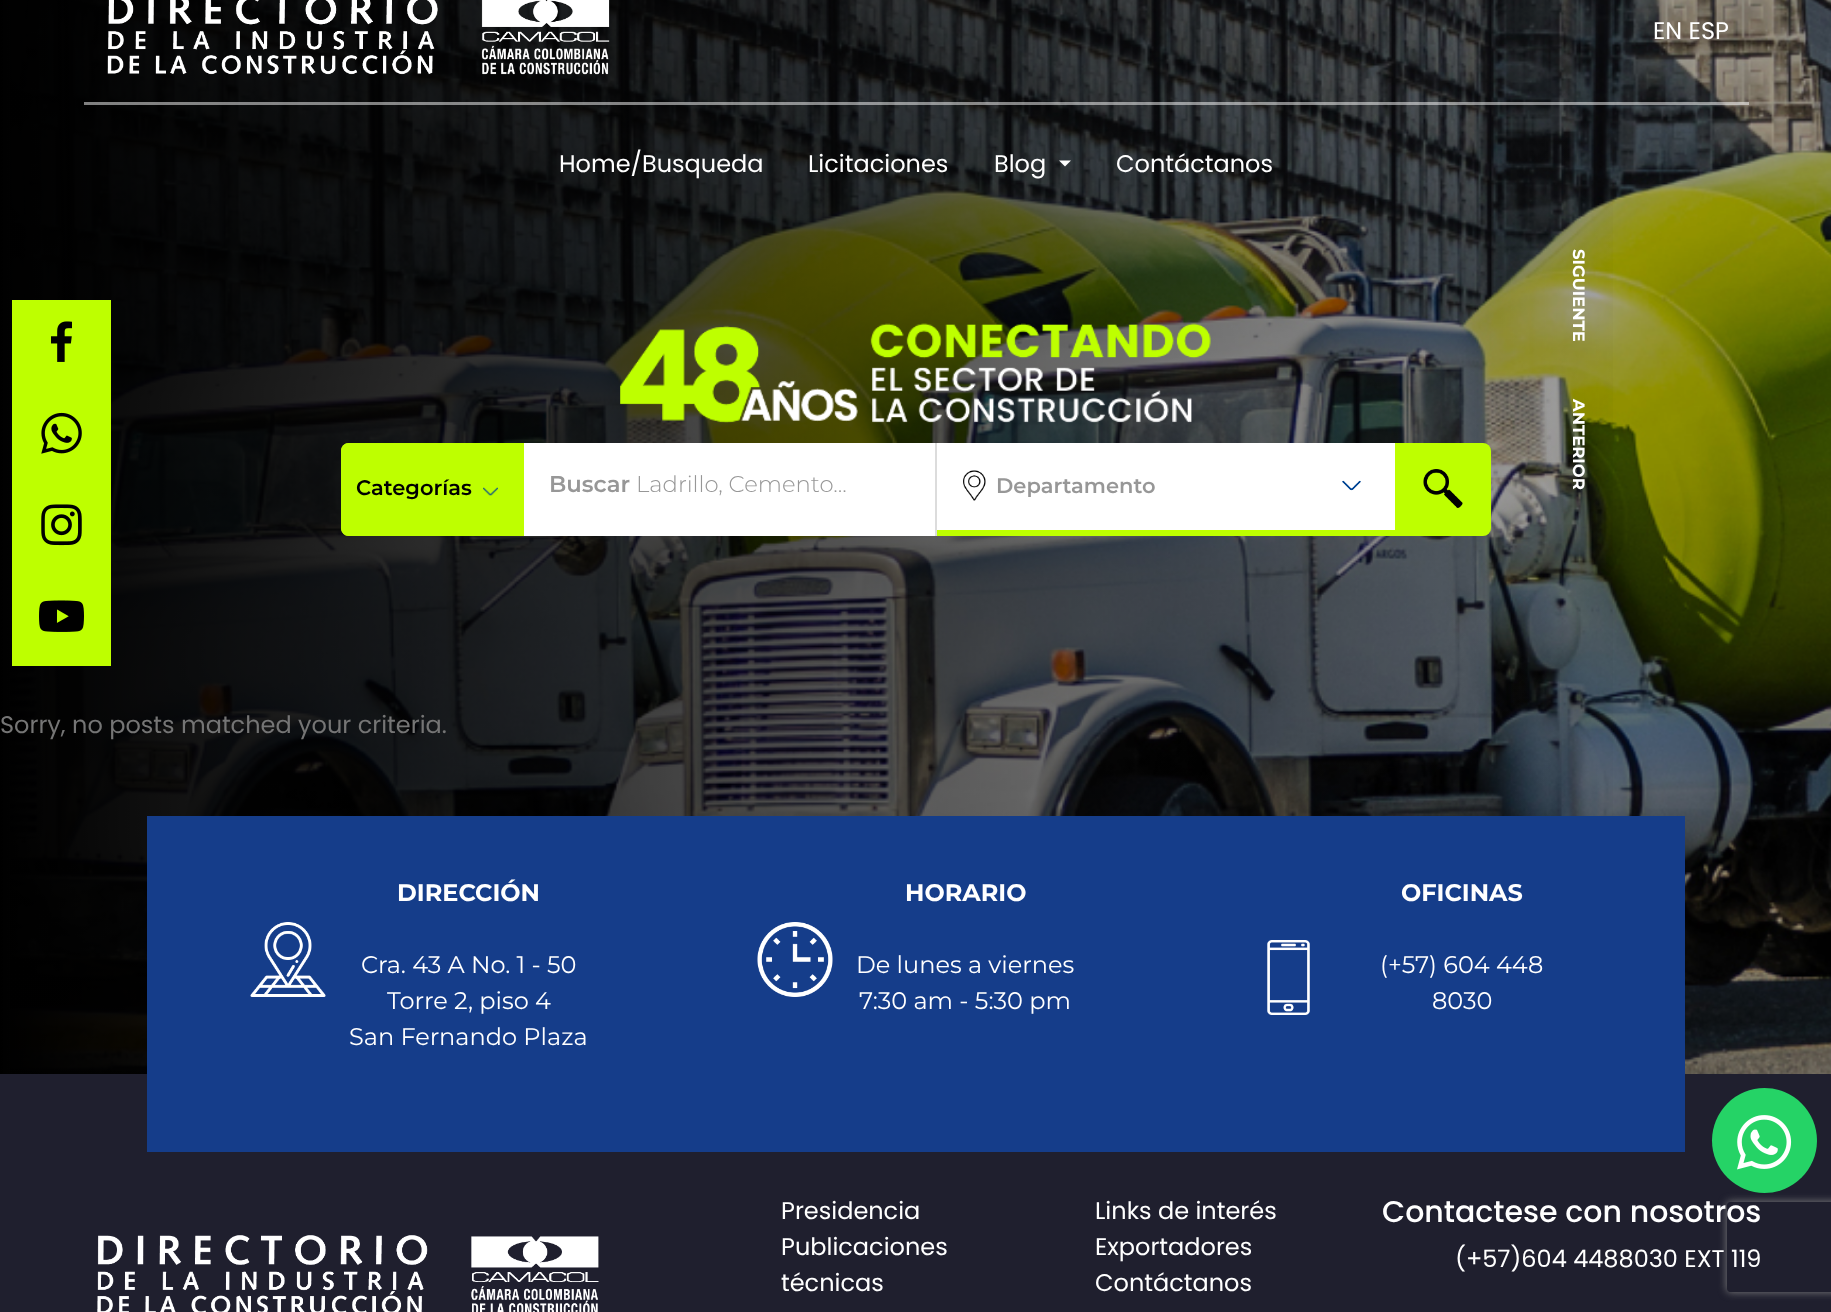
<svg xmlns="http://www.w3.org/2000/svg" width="1831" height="1312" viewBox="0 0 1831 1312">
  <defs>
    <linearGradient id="g1" gradientUnits="userSpaceOnUse" x1="0" y1="610" x2="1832" y2="610"><stop offset="0" stop-color="#000"/><stop offset="0.9" stop-color="#000" stop-opacity="0"/></linearGradient>
    <clipPath id="clip1"><path d="M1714 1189H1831V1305H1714ZM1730 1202H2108C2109.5 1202 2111 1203.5 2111 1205V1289C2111 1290.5 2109.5 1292 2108 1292H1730C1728.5 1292 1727 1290.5 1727 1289V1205C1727 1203.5 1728.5 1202 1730 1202Z" clip-rule="evenodd"/></clipPath>
  </defs>
  <rect width="100%" height="100%" fill="#fff"/>
  <image x="10" y="0" width="1821" height="1074" href="img/1.png"/>
  <path d="M0 0h1613v1074H0z" fill="url(#g1)"/>
  <image x="107" y="0" width="503" height="75" href="img/2.png"/>
  <path d="M84 102h1665v3H84z" fill="#ffffff80"/>
  <path d="M1059 160.5H1071L1065 166.5Z" fill="#fff"/>
  <path d="M12 300h99v366H12z" fill="#beff00"/>
  <image x="51" y="321" width="21" height="41" href="img/3.png"/>
  <image x="41" y="412" width="41" height="42" href="img/4.png"/>
  <image x="41" y="504" width="41" height="42" href="img/5.png"/>
  <image x="39" y="600" width="45" height="32" href="img/6.png"/>
  <image x="620" y="323" width="591" height="100" href="img/7.png"/>
  <rect x="341" y="443" width="1150" height="93" rx="8" fill="#beff00"/>
  <path d="M349 443H524V536H349C344.5 536 341 532.5 341 528V451C341 446.5 344.5 443 349 443Z" fill="#beff00"/>
  <image x="483" y="487" width="15" height="9" href="img/8.png"/>
  <path d="M524 443h411v93H524z" fill="#fff"/>
  <path d="M935 443h2v93H935z" fill="#dcdcdc"/>
  <path d="M937 443h458v87H937z" fill="#fff"/>
  <image x="963" y="470" width="23" height="31" href="img/9.png"/>
  <image x="1342" y="480" width="19" height="11" href="img/10.png"/>
  <image x="1342" y="480" width="19" height="11" href="img/11.png"/>
  <image x="1423" y="469" width="40" height="39" href="img/12.png"/>
  <path d="M0 1074h1831v238H0z" fill="#1f1f2e"/>
  <path d="M147 816h1538v336H147z" fill="#153d8a"/>
  <image x="250" y="922" width="76" height="75" href="img/13.png"/>
  <image x="757" y="922" width="76" height="75" href="img/14.png"/>
  <image x="1267" y="940" width="43" height="75" href="img/15.png"/>
  <g clip-path="url(#clip1)">
    <rect x="1727" y="1202" width="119" height="90" rx="3" fill="#808080" filter="blur(4px)"/>
  </g>
  <circle cx="1764.5" cy="1140.5" r="52.5" fill="#25d366"/>
  <image x="1737" y="1115" width="55" height="55" href="img/16.png"/>
  <image x="97" y="1235" width="502" height="77" href="img/17.png"/>
  <g font-family="Poppins" font-size="24" fill="#fff">
    <text x="1653" y="39">EN ESP</text>
    <text x="559" y="172">Home/Busqueda</text>
    <text x="808" y="172">Licitaciones</text>
    <text x="994" y="172">Blog</text>
    <text x="1116" y="172">Contáctanos</text>
  </g>
  <g font-family="Montserrat" font-size="16.5" font-weight="bold" fill="#fff">
    <text x="1573" y="249" transform="rotate(90 1573 249)">SIGUIENTE</text>
    <text x="1573" y="399" transform="rotate(90 1573 399)">ANTERIOR</text>
  </g>
  <text x="356" y="495" font-family="Montserrat" font-size="21" font-weight="600" fill="#000">Categorías</text>
  <text x="549" y="492" font-family="Montserrat" font-size="22.75" font-weight="600" fill="#979797">Buscar</text>
  <text x="636" y="492" font-family="Montserrat" font-size="22.75" font-weight="300" fill="#979797">Ladrillo, Cemento...</text>
  <text x="996" y="493" font-family="Montserrat" font-size="21" font-weight="600" fill="#979797">Departamento</text>
  <text x="0" y="733" font-family="Poppins" font-size="24" fill="#757575">Sorry, no posts matched your criteria.</text>
  <text x="397" y="901" font-family="Montserrat" font-size="24" font-weight="bold" fill="#fff">DIRECCIÓN</text>
  <g font-family="Montserrat" font-size="24" fill="#fff">
    <text x="361" y="973">Cra. 43 A No. 1 - 50</text>
    <text x="387" y="1009">Torre 2, piso 4</text>
    <text x="349" y="1045">San Fernando Plaza</text>
  </g>
  <text x="905" y="901" font-family="Montserrat" font-size="24" font-weight="bold" fill="#fff">HORARIO</text>
  <g font-family="Montserrat" font-size="24" fill="#fff">
    <text x="856" y="973">De lunes a viernes</text>
    <text x="859" y="1009">7:30 am - 5:30 pm</text>
  </g>
  <text x="1401" y="901" font-family="Montserrat" font-size="24" font-weight="bold" fill="#fff">OFICINAS</text>
  <g font-family="Montserrat" font-size="24" fill="#fff">
    <text x="1380" y="973">(+57) 604 448</text>
    <text x="1432" y="1009">8030</text>
  </g>
  <g font-family="Poppins" font-size="24" fill="#fff">
    <text x="781" y="1219">Presidencia</text>
    <text x="781" y="1255">Publicaciones</text>
    <text x="781" y="1291">técnicas</text>
    <text x="1095" y="1219">Links de interés</text>
    <text x="1095" y="1255">Exportadores</text>
    <text x="1095" y="1291">Contáctanos</text>
  </g>
  <text x="1382" y="1222" font-family="Poppins" font-size="30" font-weight="500" fill="#fff">Contactese con nosotros</text>
  <text x="1455" y="1267" font-family="Poppins" font-size="24" fill="#fff">(+57)604 4488030 EXT 119</text>
</svg>
